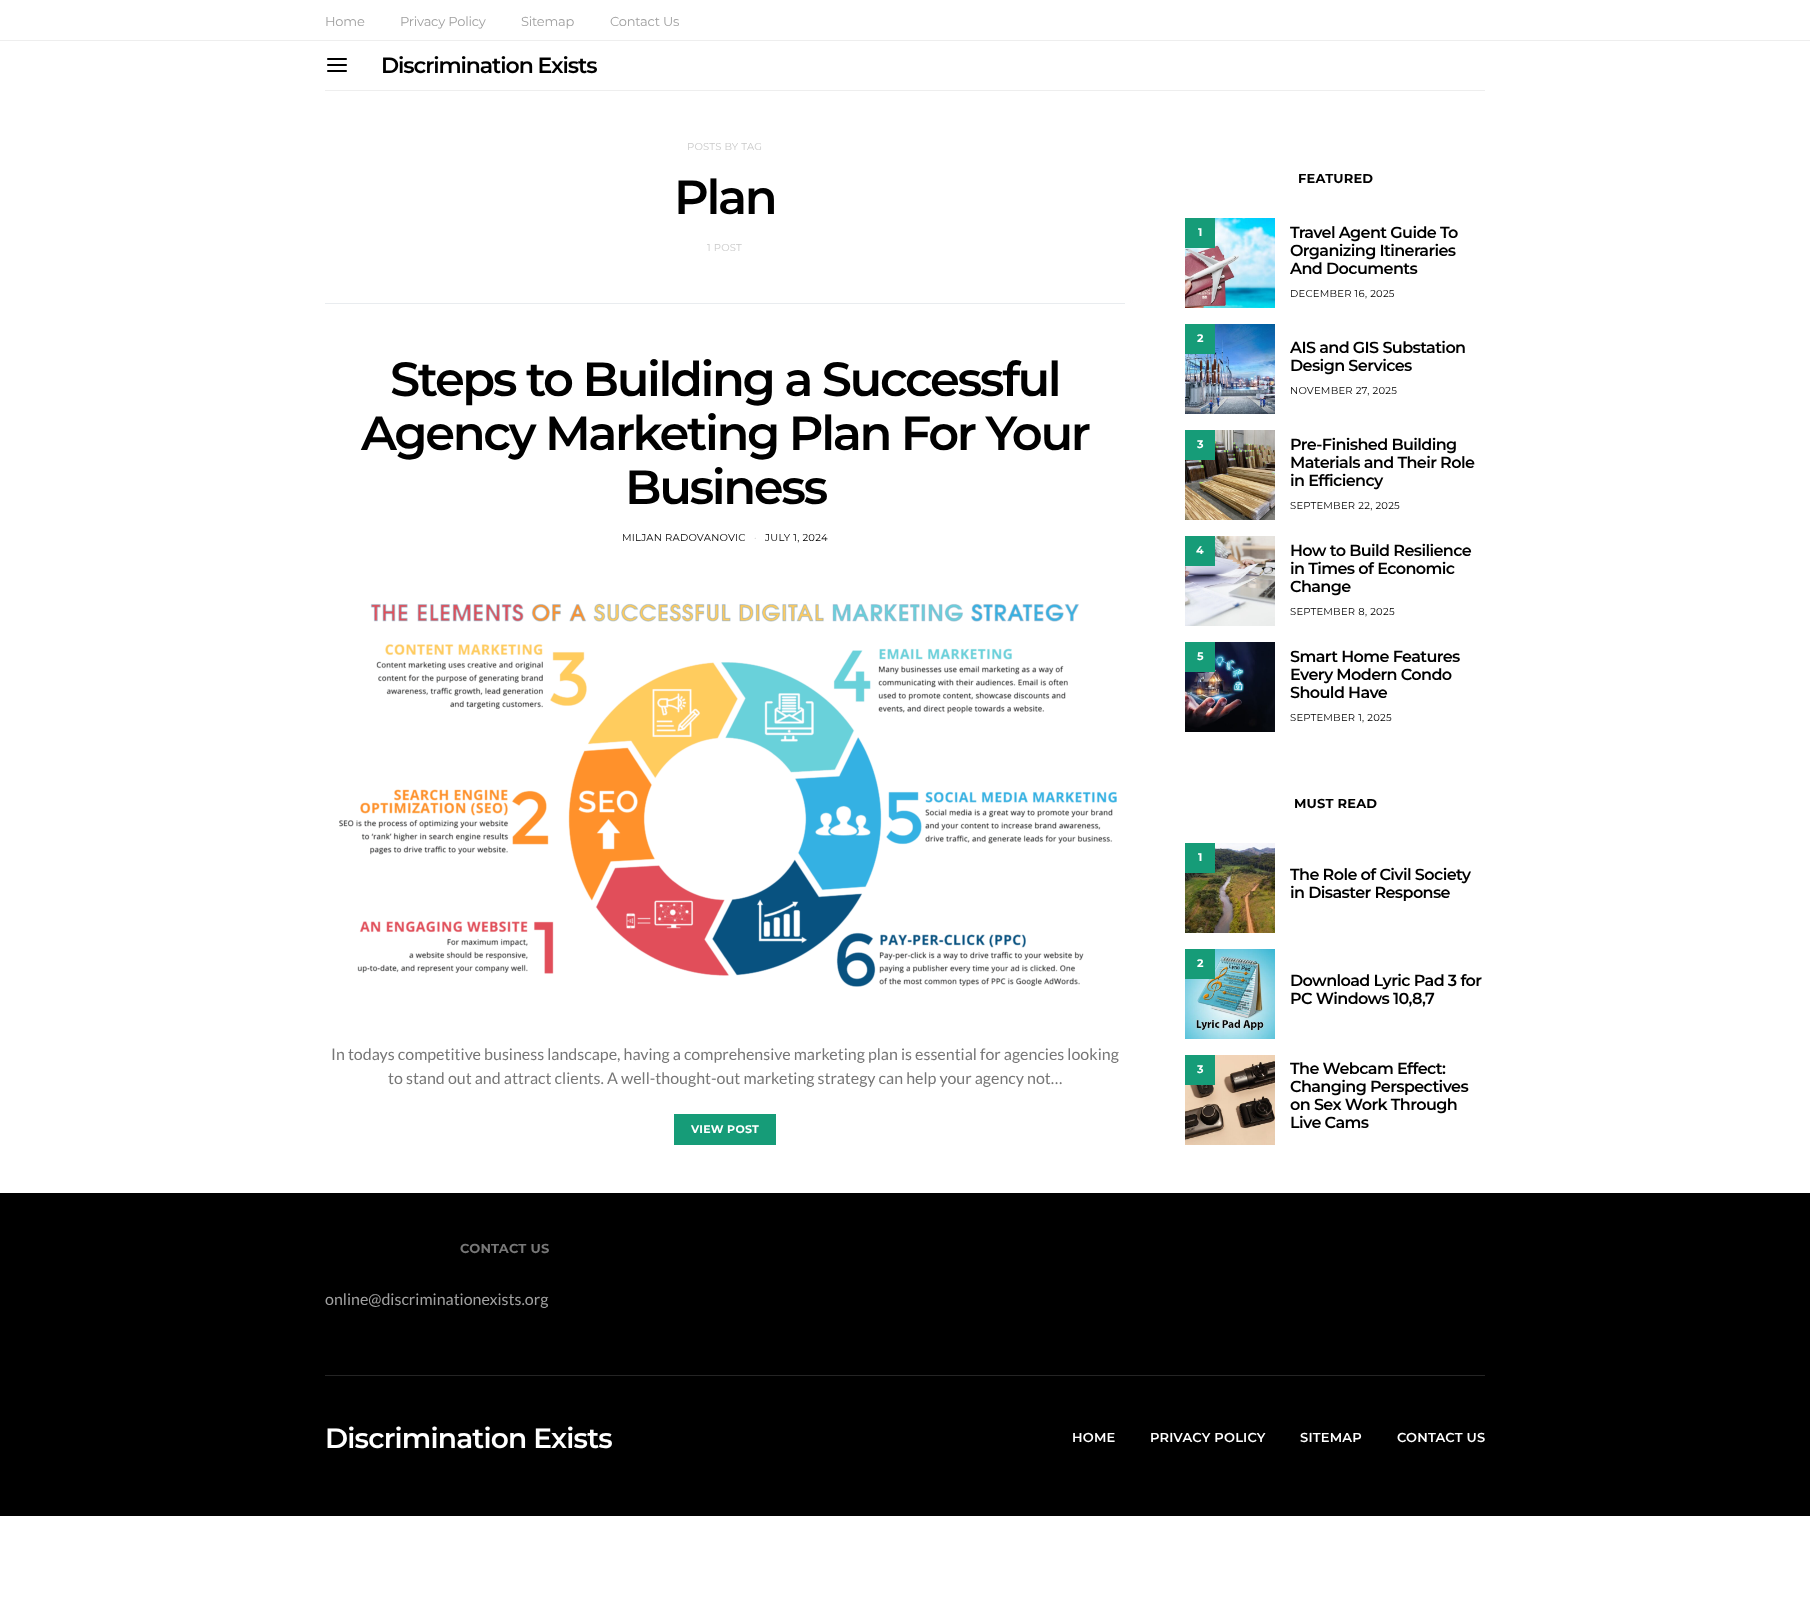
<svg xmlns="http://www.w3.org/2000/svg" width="1810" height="1600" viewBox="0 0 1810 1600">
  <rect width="100%" height="100%" fill="#fff"/>
  <path d="M0 40h1810v1H0z" fill="#eee"/>
  <path d="M325 90h1160v1H325z" fill="#eee"/>
  <image x="327" y="58" width="20" height="14" href="img/1.png"/>
  <path d="M325 303h800v1H325z" fill="#e9ecef"/>
  <image x="339" y="603" width="778" height="384" href="img/2.png"/>
  <path d="M674 1114h102v31H674z" fill="#169c78"/>
  <image x="1185" y="218" width="90" height="90" href="img/3.png"/>
  <path d="M1185 218h30v30H1185z" fill="#169c78"/>
  <image x="1185" y="324" width="90" height="90" href="img/4.png"/>
  <path d="M1185 324h30v30H1185z" fill="#169c78"/>
  <image x="1185" y="430" width="90" height="90" href="img/5.png"/>
  <path d="M1185 430h30v30H1185z" fill="#169c78"/>
  <image x="1185" y="536" width="90" height="90" href="img/6.png"/>
  <path d="M1185 536h30v30H1185z" fill="#169c78"/>
  <image x="1185" y="642" width="90" height="90" href="img/7.png"/>
  <path d="M1185 642h30v30H1185z" fill="#169c78"/>
  <image x="1185" y="843" width="90" height="90" href="img/8.png"/>
  <path d="M1185 843h30v30H1185z" fill="#169c78"/>
  <image x="1185" y="949" width="90" height="90" href="img/9.png"/>
  <path d="M1185 949h30v30H1185z" fill="#169c78"/>
  <image x="1185" y="1055" width="90" height="90" href="img/10.png"/>
  <path d="M1185 1055h30v30H1185z" fill="#169c78"/>
  <path d="M0 1193h1810v323H0z" fill="#000"/>
  <path d="M325 1375h1160v1H325z" fill="#242424"/>
  <g font-family="Montserrat" font-size="13" letter-spacing="-0.2" fill="#a0a0a0">
    <text x="325" y="26">Home</text>
    <text x="400" y="26">Privacy Policy</text>
    <text x="521" y="26">Sitemap</text>
    <text x="610" y="26">Contact Us</text>
  </g>
  <text x="381" y="73" font-family="Montserrat" font-size="22" font-weight="600" letter-spacing="-1.1" fill="#000">Discrimination Exists</text>
  <text x="687" y="150" font-family="Montserrat" font-size="10" letter-spacing="0.25" fill="#c9c9c9">POSTS BY TAG</text>
  <text x="674" y="214" font-family="Montserrat" font-size="48" font-weight="600" letter-spacing="-2.4" fill="#000">Plan</text>
  <text x="707" y="251" font-family="Montserrat" font-size="10" letter-spacing="0.25" fill="#c9c9c9">1 POST</text>
  <g font-family="Montserrat" font-size="48" font-weight="600" letter-spacing="-2.4" fill="#000">
    <text x="390" y="396">Steps to Building a Successful</text>
    <text x="361" y="450">Agency Marketing Plan For Your</text>
    <text x="625" y="504">Business</text>
  </g>
  <text x="622" y="541" font-family="Montserrat" font-size="10" letter-spacing="0.25" fill="#000">MILJAN RADOVANOVIC</text>
  <text x="754" y="541" font-family="Montserrat" font-size="10" letter-spacing="0.25" fill="#c9c9c9">·</text>
  <text x="765" y="541" font-family="Montserrat" font-size="10" letter-spacing="0.25" fill="#000">JULY 1, 2024</text>
  <g font-family="Lato" font-size="16" fill="#777">
    <text x="331" y="1060">In todays competitive business landscape, having a comprehensive marketing plan is essential for agencies looking</text>
    <text x="388" y="1084">to stand out and attract clients. A well-thought-out marketing strategy can help your agency not…</text>
  </g>
  <text x="691" y="1133" font-family="Montserrat" font-size="11" font-weight="bold" letter-spacing="0.25" fill="#fff">VIEW POST</text>
  <text x="1298" y="183" font-family="Montserrat" font-size="13" font-weight="bold" letter-spacing="0.2" fill="#000">FEATURED</text>
  <text x="1198" y="236" font-family="Montserrat" font-size="11" font-weight="bold" letter-spacing="0.25" fill="#fff">1</text>
  <g font-family="Montserrat" font-size="16" font-weight="600" letter-spacing="-0.6" fill="#000">
    <text x="1290" y="238">Travel Agent Guide To</text>
    <text x="1290" y="256">Organizing Itineraries</text>
    <text x="1290" y="274">And Documents</text>
  </g>
  <text x="1290" y="297" font-family="Montserrat" font-size="10" letter-spacing="0.25" fill="#000">DECEMBER 16, 2025</text>
  <text x="1197" y="342" font-family="Montserrat" font-size="11" font-weight="bold" letter-spacing="0.25" fill="#fff">2</text>
  <g font-family="Montserrat" font-size="16" font-weight="600" letter-spacing="-0.6" fill="#000">
    <text x="1290" y="353">AIS and GIS Substation</text>
    <text x="1290" y="371">Design Services</text>
  </g>
  <text x="1290" y="394" font-family="Montserrat" font-size="10" letter-spacing="0.25" fill="#000">NOVEMBER 27, 2025</text>
  <text x="1197" y="448" font-family="Montserrat" font-size="11" font-weight="bold" letter-spacing="0.25" fill="#fff">3</text>
  <g font-family="Montserrat" font-size="16" font-weight="600" letter-spacing="-0.6" fill="#000">
    <text x="1290" y="450">Pre-Finished Building</text>
    <text x="1290" y="468">Materials and Their Role</text>
    <text x="1290" y="486">in Efficiency</text>
  </g>
  <text x="1290" y="509" font-family="Montserrat" font-size="10" letter-spacing="0.25" fill="#000">SEPTEMBER 22, 2025</text>
  <text x="1196" y="554" font-family="Montserrat" font-size="11" font-weight="bold" letter-spacing="0.25" fill="#fff">4</text>
  <g font-family="Montserrat" font-size="16" font-weight="600" letter-spacing="-0.6" fill="#000">
    <text x="1290" y="556">How to Build Resilience</text>
    <text x="1290" y="574">in Times of Economic</text>
    <text x="1290" y="592">Change</text>
  </g>
  <text x="1290" y="615" font-family="Montserrat" font-size="10" letter-spacing="0.25" fill="#000">SEPTEMBER 8, 2025</text>
  <text x="1197" y="660" font-family="Montserrat" font-size="11" font-weight="bold" letter-spacing="0.25" fill="#fff">5</text>
  <g font-family="Montserrat" font-size="16" font-weight="600" letter-spacing="-0.6" fill="#000">
    <text x="1290" y="662">Smart Home Features</text>
    <text x="1290" y="680">Every Modern Condo</text>
    <text x="1290" y="698">Should Have</text>
  </g>
  <text x="1290" y="721" font-family="Montserrat" font-size="10" letter-spacing="0.25" fill="#000">SEPTEMBER 1, 2025</text>
  <text x="1294" y="808" font-family="Montserrat" font-size="13" font-weight="bold" letter-spacing="0.2" fill="#000">MUST READ</text>
  <text x="1198" y="861" font-family="Montserrat" font-size="11" font-weight="bold" letter-spacing="0.25" fill="#fff">1</text>
  <g font-family="Montserrat" font-size="16" font-weight="600" letter-spacing="-0.6" fill="#000">
    <text x="1290" y="880">The Role of Civil Society</text>
    <text x="1290" y="898">in Disaster Response</text>
  </g>
  <text x="1197" y="967" font-family="Montserrat" font-size="11" font-weight="bold" letter-spacing="0.25" fill="#fff">2</text>
  <g font-family="Montserrat" font-size="16" font-weight="600" letter-spacing="-0.6" fill="#000">
    <text x="1290" y="986">Download Lyric Pad 3 for</text>
    <text x="1290" y="1004">PC Windows 10,8,7</text>
  </g>
  <text x="1197" y="1073" font-family="Montserrat" font-size="11" font-weight="bold" letter-spacing="0.25" fill="#fff">3</text>
  <g font-family="Montserrat" font-size="16" font-weight="600" letter-spacing="-0.6" fill="#000">
    <text x="1290" y="1074">The Webcam Effect:</text>
    <text x="1290" y="1092">Changing Perspectives</text>
    <text x="1290" y="1110">on Sex Work Through</text>
    <text x="1290" y="1128">Live Cams</text>
  </g>
  <text x="460" y="1253" font-family="Montserrat" font-size="13" font-weight="bold" letter-spacing="0.2" fill="#777">CONTACT US</text>
  <text x="325" y="1305" font-family="Lato" font-size="16" fill="#a0a0a0">online@discriminationexists.org</text>
  <text x="325" y="1448" font-family="Montserrat" font-size="28" font-weight="600" letter-spacing="-0.8" fill="#fff">Discrimination Exists</text>
  <g font-family="Montserrat" font-size="13" font-weight="600" letter-spacing="0.2" fill="#fff">
    <text x="1072" y="1442">HOME</text>
    <text x="1150" y="1442">PRIVACY POLICY</text>
    <text x="1300" y="1442">SITEMAP</text>
    <text x="1397" y="1442">CONTACT US</text>
  </g>
</svg>
